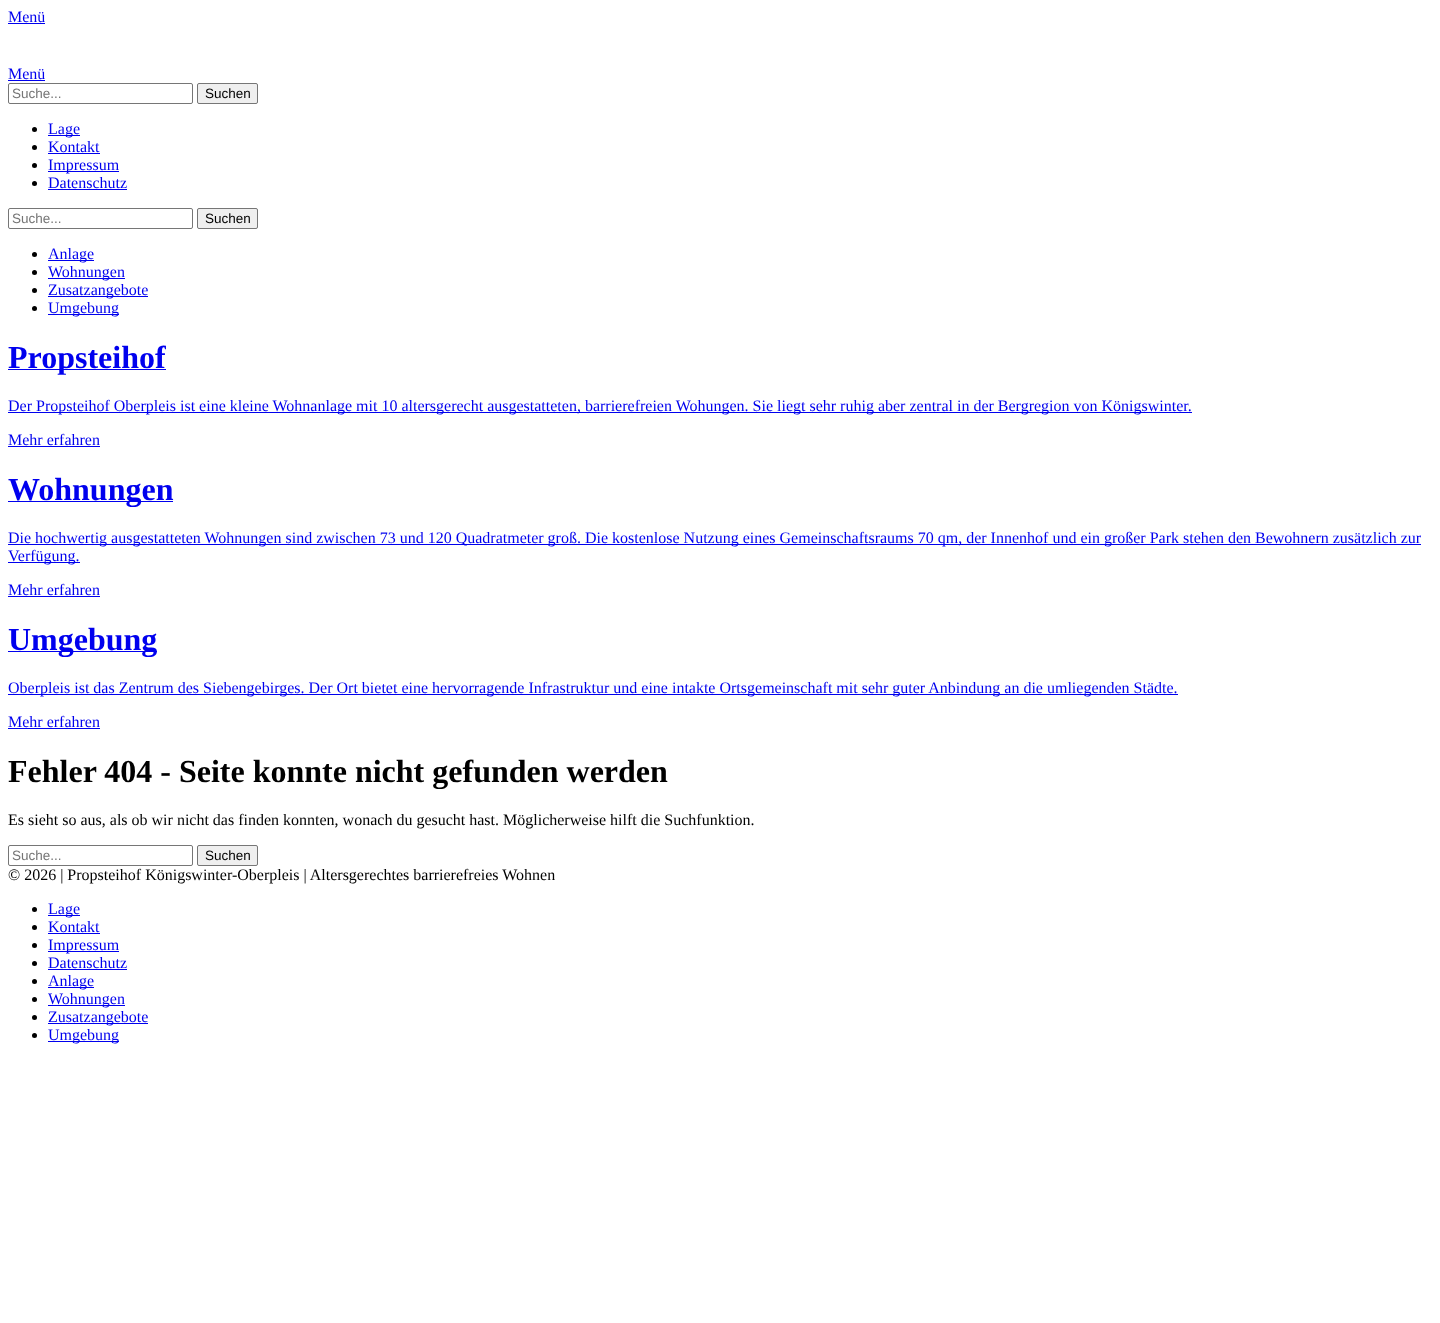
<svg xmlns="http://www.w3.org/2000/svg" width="1440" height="1323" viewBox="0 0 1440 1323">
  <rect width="100%" height="100%" fill="#fff"/>
  <path d="M8 23h37v1H8z" fill="#00e"/>
  <path d="M8 80h37v1H8z" fill="#00e"/>
  <rect x="8.5" y="83.5" width="184" height="20" rx="1.5" fill="none" stroke="#767676"/>
  <rect x="197.5" y="83.5" width="60" height="20" rx="1.5" fill="#efefef" stroke="#767676"/>
  <circle cx="34.5" cy="129.5" r="2.5" fill="#000"/>
  <path d="M48 135h32v1H48z" fill="#00e"/>
  <circle cx="34.5" cy="147.5" r="2.5" fill="#000"/>
  <path d="M48 153h52v1H48z" fill="#00e"/>
  <circle cx="34.5" cy="165.5" r="2.5" fill="#000"/>
  <path d="M48 171h71v1H48z" fill="#00e"/>
  <circle cx="34.5" cy="183.5" r="2.5" fill="#000"/>
  <path d="M48 189h79v1H48z" fill="#00e"/>
  <rect x="8.5" y="208.5" width="184" height="20" rx="1.5" fill="none" stroke="#767676"/>
  <rect x="197.5" y="208.5" width="60" height="20" rx="1.5" fill="#efefef" stroke="#767676"/>
  <circle cx="34.5" cy="254.5" r="2.5" fill="#000"/>
  <path d="M48 260h46v1H48z" fill="#00e"/>
  <circle cx="34.5" cy="272.5" r="2.5" fill="#000"/>
  <path d="M48 278h77v1H48z" fill="#00e"/>
  <circle cx="34.5" cy="290.5" r="2.5" fill="#000"/>
  <path d="M48 296h100v1H48z" fill="#00e"/>
  <circle cx="34.5" cy="308.5" r="2.5" fill="#000"/>
  <path d="M48 314h71v1H48z" fill="#00e"/>
  <path d="M8 369h158v1H8z" fill="#00e"/>
  <path d="M8 412h1184v1H8z" fill="#00e"/>
  <path d="M8 446h92v1H8z" fill="#00e"/>
  <path d="M8 501h165v1H8z" fill="#00e"/>
  <path d="M8 544h1413v1H8z" fill="#00e"/>
  <path d="M8 562h72v1H8z" fill="#00e"/>
  <path d="M8 596h92v1H8z" fill="#00e"/>
  <path d="M8 651h149v1H8z" fill="#00e"/>
  <path d="M8 694h1170v1H8z" fill="#00e"/>
  <path d="M8 728h92v1H8z" fill="#00e"/>
  <rect x="8.5" y="845.5" width="184" height="20" rx="1.5" fill="none" stroke="#767676"/>
  <rect x="197.5" y="845.5" width="60" height="20" rx="1.5" fill="#efefef" stroke="#767676"/>
  <circle cx="34.5" cy="909.5" r="2.5" fill="#000"/>
  <path d="M48 915h32v1H48z" fill="#00e"/>
  <circle cx="34.5" cy="927.5" r="2.5" fill="#000"/>
  <path d="M48 933h52v1H48z" fill="#00e"/>
  <circle cx="34.5" cy="945.5" r="2.5" fill="#000"/>
  <path d="M48 951h71v1H48z" fill="#00e"/>
  <circle cx="34.5" cy="963.5" r="2.5" fill="#000"/>
  <path d="M48 969h79v1H48z" fill="#00e"/>
  <circle cx="34.5" cy="981.5" r="2.5" fill="#000"/>
  <path d="M48 987h46v1H48z" fill="#00e"/>
  <circle cx="34.5" cy="999.5" r="2.5" fill="#000"/>
  <path d="M48 1005h77v1H48z" fill="#00e"/>
  <circle cx="34.5" cy="1017.5" r="2.5" fill="#000"/>
  <path d="M48 1023h100v1H48z" fill="#00e"/>
  <circle cx="34.5" cy="1035.5" r="2.5" fill="#000"/>
  <path d="M48 1041h71v1H48z" fill="#00e"/>
  <g font-family="Liberation Serif" font-size="16" fill="#00e">
    <text x="8" y="22">Menü</text>
    <text x="8" y="79">Menü</text>
  </g>
  <text x="12" y="98" font-family="Liberation Sans" font-size="13.5" fill="#757575">Suche...</text>
  <text x="205" y="98" font-family="Liberation Sans" font-size="13.5" fill="#000">Suchen</text>
  <g font-family="Liberation Serif" font-size="16" fill="#00e">
    <text x="48" y="134">Lage</text>
    <text x="48" y="152">Kontakt</text>
    <text x="48" y="170">Impressum</text>
    <text x="48" y="188">Datenschutz</text>
  </g>
  <text x="12" y="223" font-family="Liberation Sans" font-size="13.5" fill="#757575">Suche...</text>
  <text x="205" y="223" font-family="Liberation Sans" font-size="13.5" fill="#000">Suchen</text>
  <g font-family="Liberation Serif" font-size="16" fill="#00e">
    <text x="48" y="259">Anlage</text>
    <text x="48" y="277">Wohnungen</text>
    <text x="48" y="295">Zusatzangebote</text>
    <text x="48" y="313">Umgebung</text>
  </g>
  <text x="8" y="368" font-family="Liberation Serif" font-size="32" font-weight="bold" fill="#00e">Propsteihof</text>
  <g font-family="Liberation Serif" font-size="16" fill="#00e">
    <text x="8" y="411">Der Propsteihof Oberpleis ist eine kleine Wohnanlage mit 10 altersgerecht ausgestatteten, barrierefreien Wohungen. Sie liegt sehr ruhig aber zentral in der Bergregion von Königswinter.</text>
    <text x="8" y="445">Mehr erfahren</text>
  </g>
  <text x="8" y="500" font-family="Liberation Serif" font-size="32" font-weight="bold" fill="#00e">Wohnungen</text>
  <g font-family="Liberation Serif" font-size="16" fill="#00e">
    <text x="8" y="543">Die hochwertig ausgestatteten Wohnungen sind zwischen 73 und 120 Quadratmeter groß. Die kostenlose Nutzung eines Gemeinschaftsraums 70 qm, der Innenhof und ein großer Park stehen den Bewohnern zusätzlich zur</text>
    <text x="8" y="561">Verfügung.</text>
    <text x="8" y="595">Mehr erfahren</text>
  </g>
  <text x="8" y="650" font-family="Liberation Serif" font-size="32" font-weight="bold" fill="#00e">Umgebung</text>
  <g font-family="Liberation Serif" font-size="16" fill="#00e">
    <text x="8" y="693">Oberpleis ist das Zentrum des Siebengebirges. Der Ort bietet eine hervorragende Infrastruktur und eine intakte Ortsgemeinschaft mit sehr guter Anbindung an die umliegenden Städte.</text>
    <text x="8" y="727">Mehr erfahren</text>
  </g>
  <text x="8" y="782" font-family="Liberation Serif" font-size="32" font-weight="bold" fill="#000">Fehler 404 - Seite konnte nicht gefunden werden</text>
  <text x="8" y="825" font-family="Liberation Serif" font-size="16" fill="#000">Es sieht so aus, als ob wir nicht das finden konnten, wonach du gesucht hast. Möglicherweise hilft die Suchfunktion.</text>
  <text x="12" y="860" font-family="Liberation Sans" font-size="13.5" fill="#757575">Suche...</text>
  <text x="205" y="860" font-family="Liberation Sans" font-size="13.5" fill="#000">Suchen</text>
  <text x="8" y="880" font-family="Liberation Serif" font-size="16" fill="#000">© 2026 | Propsteihof Königswinter-Oberpleis | Altersgerechtes barrierefreies Wohnen</text>
  <g font-family="Liberation Serif" font-size="16" fill="#00e">
    <text x="48" y="914">Lage</text>
    <text x="48" y="932">Kontakt</text>
    <text x="48" y="950">Impressum</text>
    <text x="48" y="968">Datenschutz</text>
    <text x="48" y="986">Anlage</text>
    <text x="48" y="1004">Wohnungen</text>
    <text x="48" y="1022">Zusatzangebote</text>
    <text x="48" y="1040">Umgebung</text>
  </g>
</svg>
